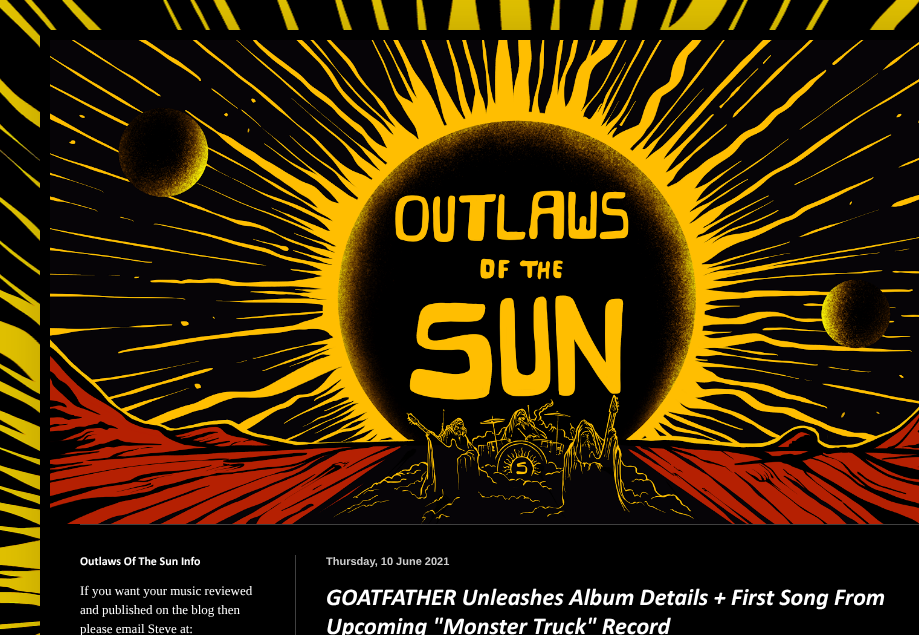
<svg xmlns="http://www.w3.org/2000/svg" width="919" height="635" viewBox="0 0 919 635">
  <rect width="100%" height="100%" fill="#fff"/>
  <image x="0" y="0" width="919" height="635" href="img/1.png"/>
  <path d="M40 30h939v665H40z" fill="#00000026" filter="blur(20px)"/>
  <path d="M40 30h879v605H40z" fill="#000"/>
  <image x="50" y="40" width="869" height="484" href="img/2.png"/>
  <path d="M80 524h839v1H80z" fill="#404040"/>
  <path d="M295 555h1v80H295z" fill="#404040"/>
  <text x="80" y="565" font-family="Calibri" font-size="12" font-weight="bold" fill="#fff">Outlaws Of The Sun Info</text>
  <g font-family="Liberation Serif" font-size="13" fill="#fff">
    <text x="80" y="595">If you want your music reviewed</text>
    <text x="80" y="614">and published on the blog then</text>
    <text x="80" y="633">please email Steve at:</text>
  </g>
  <text x="326" y="565" font-family="Liberation Sans" font-size="11" font-weight="bold" fill="#ccc">Thursday, 10 June 2021</text>
  <g font-family="Calibri" font-size="24" font-weight="bold" font-style="italic" fill="#fff">
    <text x="326" y="605">GOATFATHER Unleashes Album Details + First Song From</text>
    <text x="326" y="634">Upcoming "Monster Truck" Record</text>
  </g>
</svg>
